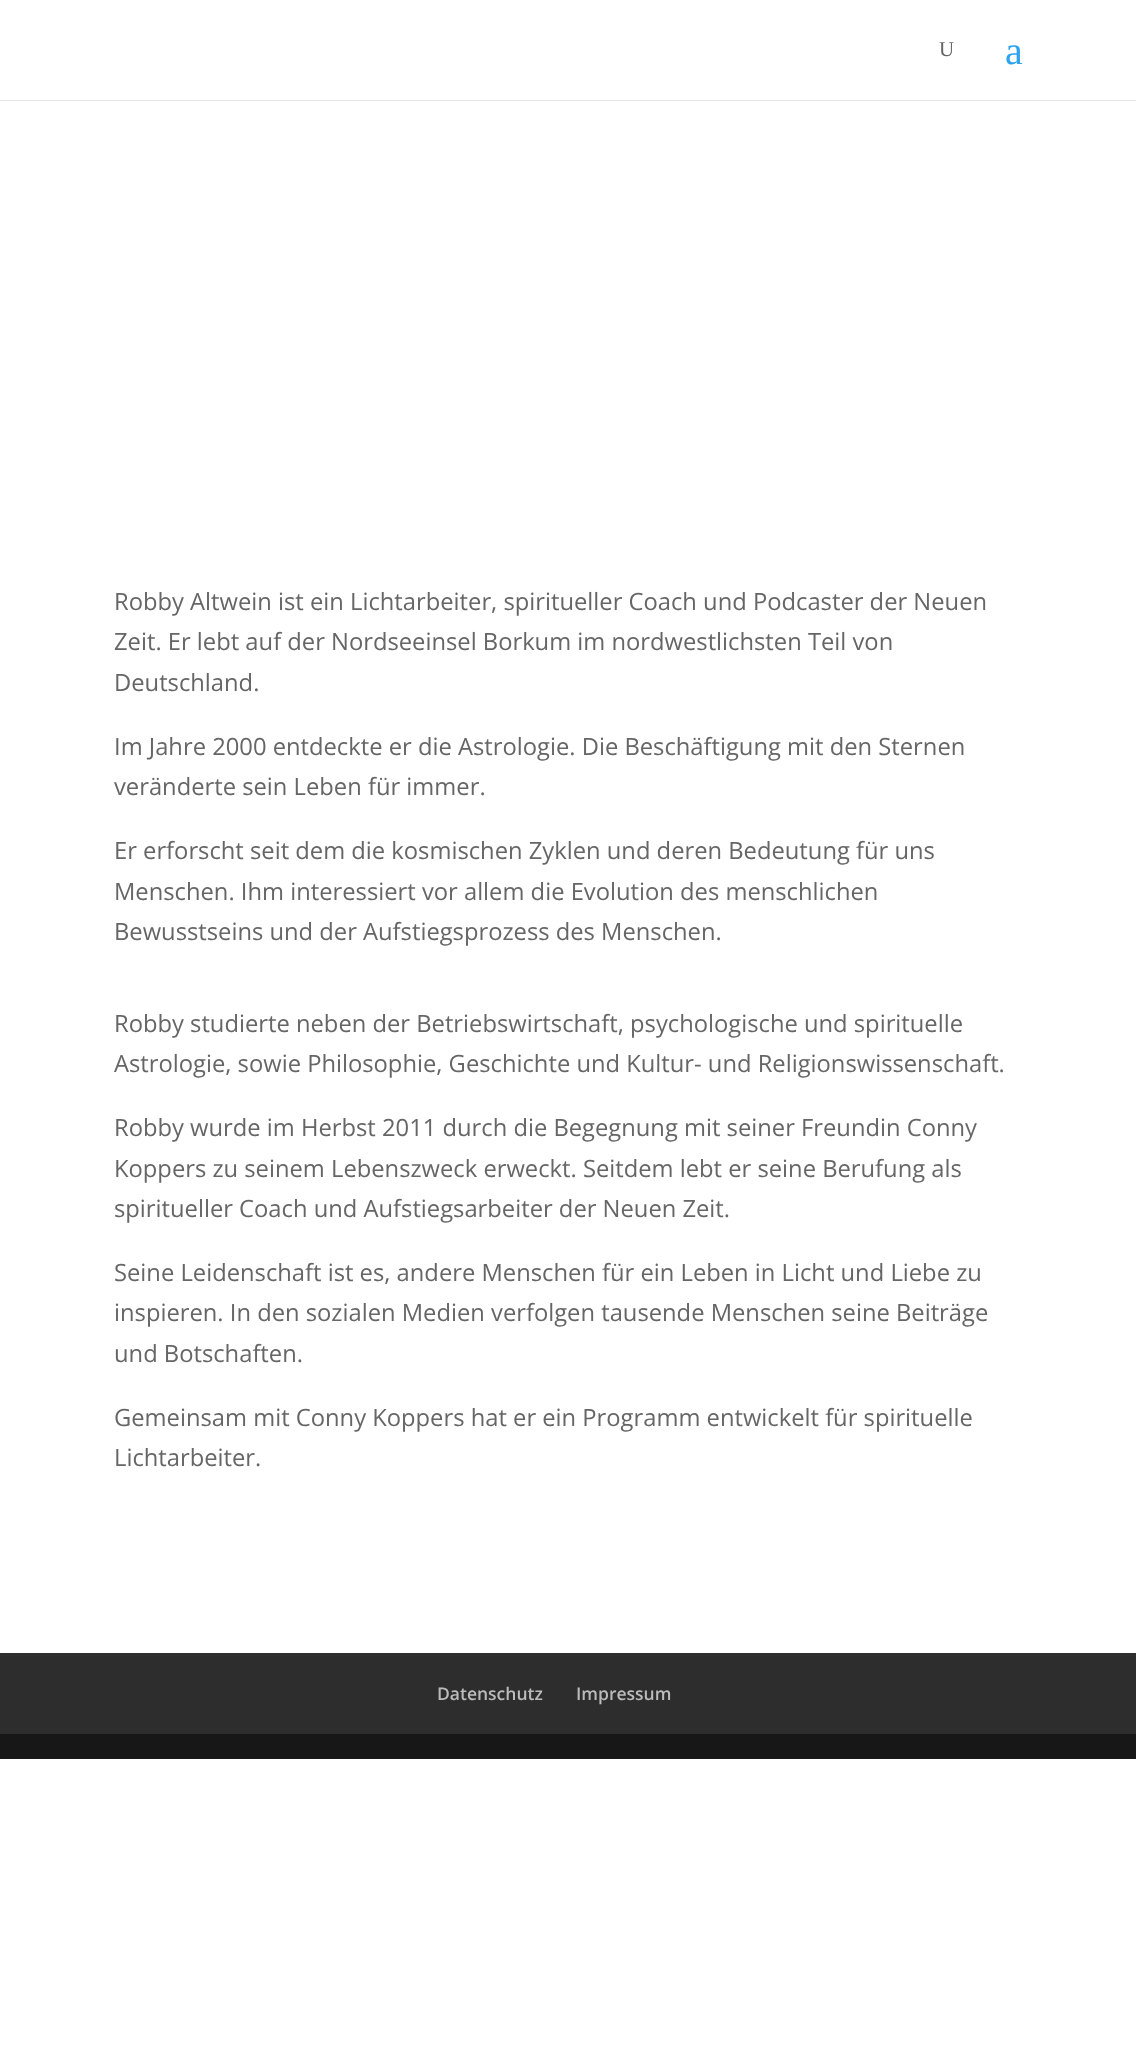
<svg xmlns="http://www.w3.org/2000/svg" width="1136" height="2067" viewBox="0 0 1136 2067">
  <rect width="100%" height="100%" fill="#fff"/>
  <path d="M0 100h1136v1H0z" fill="#e6e6e6"/>
  <path d="M0 1653h1136v81H0z" fill="#2d2d2d"/>
  <path d="M0 1734h1136v25H0z" fill="#171717"/>
  <text x="939" y="56" font-family="Liberation Serif" font-size="21" fill="#666">U</text>
  <text x="1005" y="64" font-family="Liberation Serif" font-size="40" fill="#2ea3f2">a</text>
  <g font-family="Open Sans" font-size="23.75" fill="#666">
    <text x="114" y="610">Robby Altwein ist ein Lichtarbeiter, spiritueller Coach und Podcaster der Neuen</text>
    <text x="114" y="650">Zeit. Er lebt auf der Nordseeinsel Borkum im nordwestlichsten Teil von</text>
    <text x="114" y="691">Deutschland.</text>
    <text x="114" y="755">Im Jahre 2000 entdeckte er die Astrologie. Die Beschäftigung mit den Sternen</text>
    <text x="114" y="795">veränderte sein Leben für immer.</text>
    <text x="114" y="859">Er erforscht seit dem die kosmischen Zyklen und deren Bedeutung für uns</text>
    <text x="114" y="900">Menschen. Ihm interessiert vor allem die Evolution des menschlichen</text>
    <text x="114" y="940">Bewusstseins und der Aufstiegsprozess des Menschen.</text>
    <text x="114" y="1032">Robby studierte neben der Betriebswirtschaft, psychologische und spirituelle</text>
    <text x="114" y="1072">Astrologie, sowie Philosophie, Geschichte und Kultur- und Religionswissenschaft.</text>
    <text x="114" y="1136">Robby wurde im Herbst 2011 durch die Begegnung mit seiner Freundin Conny</text>
    <text x="114" y="1177">Koppers zu seinem Lebenszweck erweckt. Seitdem lebt er seine Berufung als</text>
    <text x="114" y="1217">spiritueller Coach und Aufstiegsarbeiter der Neuen Zeit.</text>
    <text x="114" y="1281">Seine Leidenschaft ist es, andere Menschen für ein Leben in Licht und Liebe zu</text>
    <text x="114" y="1321">inspieren. In den sozialen Medien verfolgen tausende Menschen seine Beiträge</text>
    <text x="114" y="1362">und Botschaften.</text>
    <text x="114" y="1426">Gemeinsam mit Conny Koppers hat er ein Programm entwickelt für spirituelle</text>
    <text x="114" y="1466">Lichtarbeiter.</text>
  </g>
  <g font-family="Open Sans" font-size="17.5" font-weight="600" fill="#bbb">
    <text x="437" y="1700">Datenschutz</text>
    <text x="576" y="1700">Impressum</text>
  </g>
</svg>
